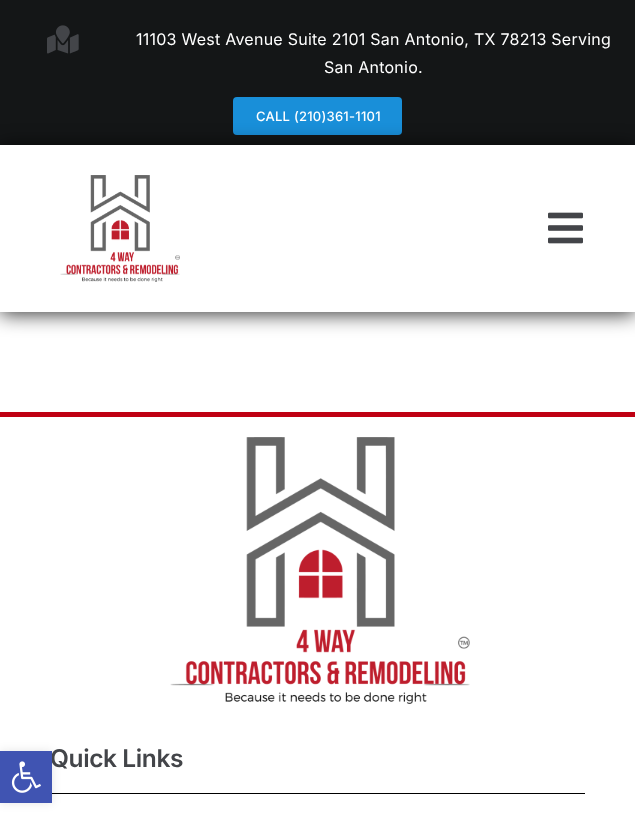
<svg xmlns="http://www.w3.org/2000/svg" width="635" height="813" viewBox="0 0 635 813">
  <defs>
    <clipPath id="clip1"><path d="M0 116H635V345H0ZM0 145H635V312H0Z" clip-rule="evenodd"/></clipPath>
  </defs>
  <rect width="100%" height="100%" fill="#fff"/>
  <path d="M50 793h535v1H50z" fill="#000"/>
  <path d="M0 751h52v52H0z" fill="#0000001a" filter="blur(5px)"/>
  <path d="M0 0h635v145H0z" fill="#141617"/>
  <image x="47" y="25" width="32" height="29" href="img/2.png"/>
  <rect x="233" y="97" width="169" height="38" rx="4" fill="#198fd9"/>
  <g clip-path="url(#clip1)">
    <path d="M0 147h635v167H0z" fill="#000000cc" filter="blur(10px)"/>
  </g>
  <image x="60" y="175" width="120" height="107" href="img/3.png"/>
  <image x="548" y="212" width="35" height="32" href="img/4.png"/>
  <path d="M0 412h635v5H0z" fill="#bf0013"/>
  <image x="170" y="437" width="300" height="267" href="img/5.png"/>
  <g font-family="Inter" font-size="16" letter-spacing="0.25" fill="#fff">
    <text x="136" y="45">11103 West Avenue Suite 2101 San Antonio, TX 78213 Serving</text>
    <text x="324" y="73">San Antonio.</text>
  </g>
  <text x="256" y="121" font-family="Inter" font-size="13" font-weight="500" letter-spacing="0.25" fill="#fff">CALL (210)361-1101</text>
  <text x="50" y="767" font-family="Inter" font-size="24.5" font-weight="600" letter-spacing="-0.4" fill="#434549">Quick Links</text>
  <path d="M0 751h52v52H0z" fill="#4054b2"/>
  <image x="11" y="761" width="30" height="32" href="img/1.png"/>
</svg>
